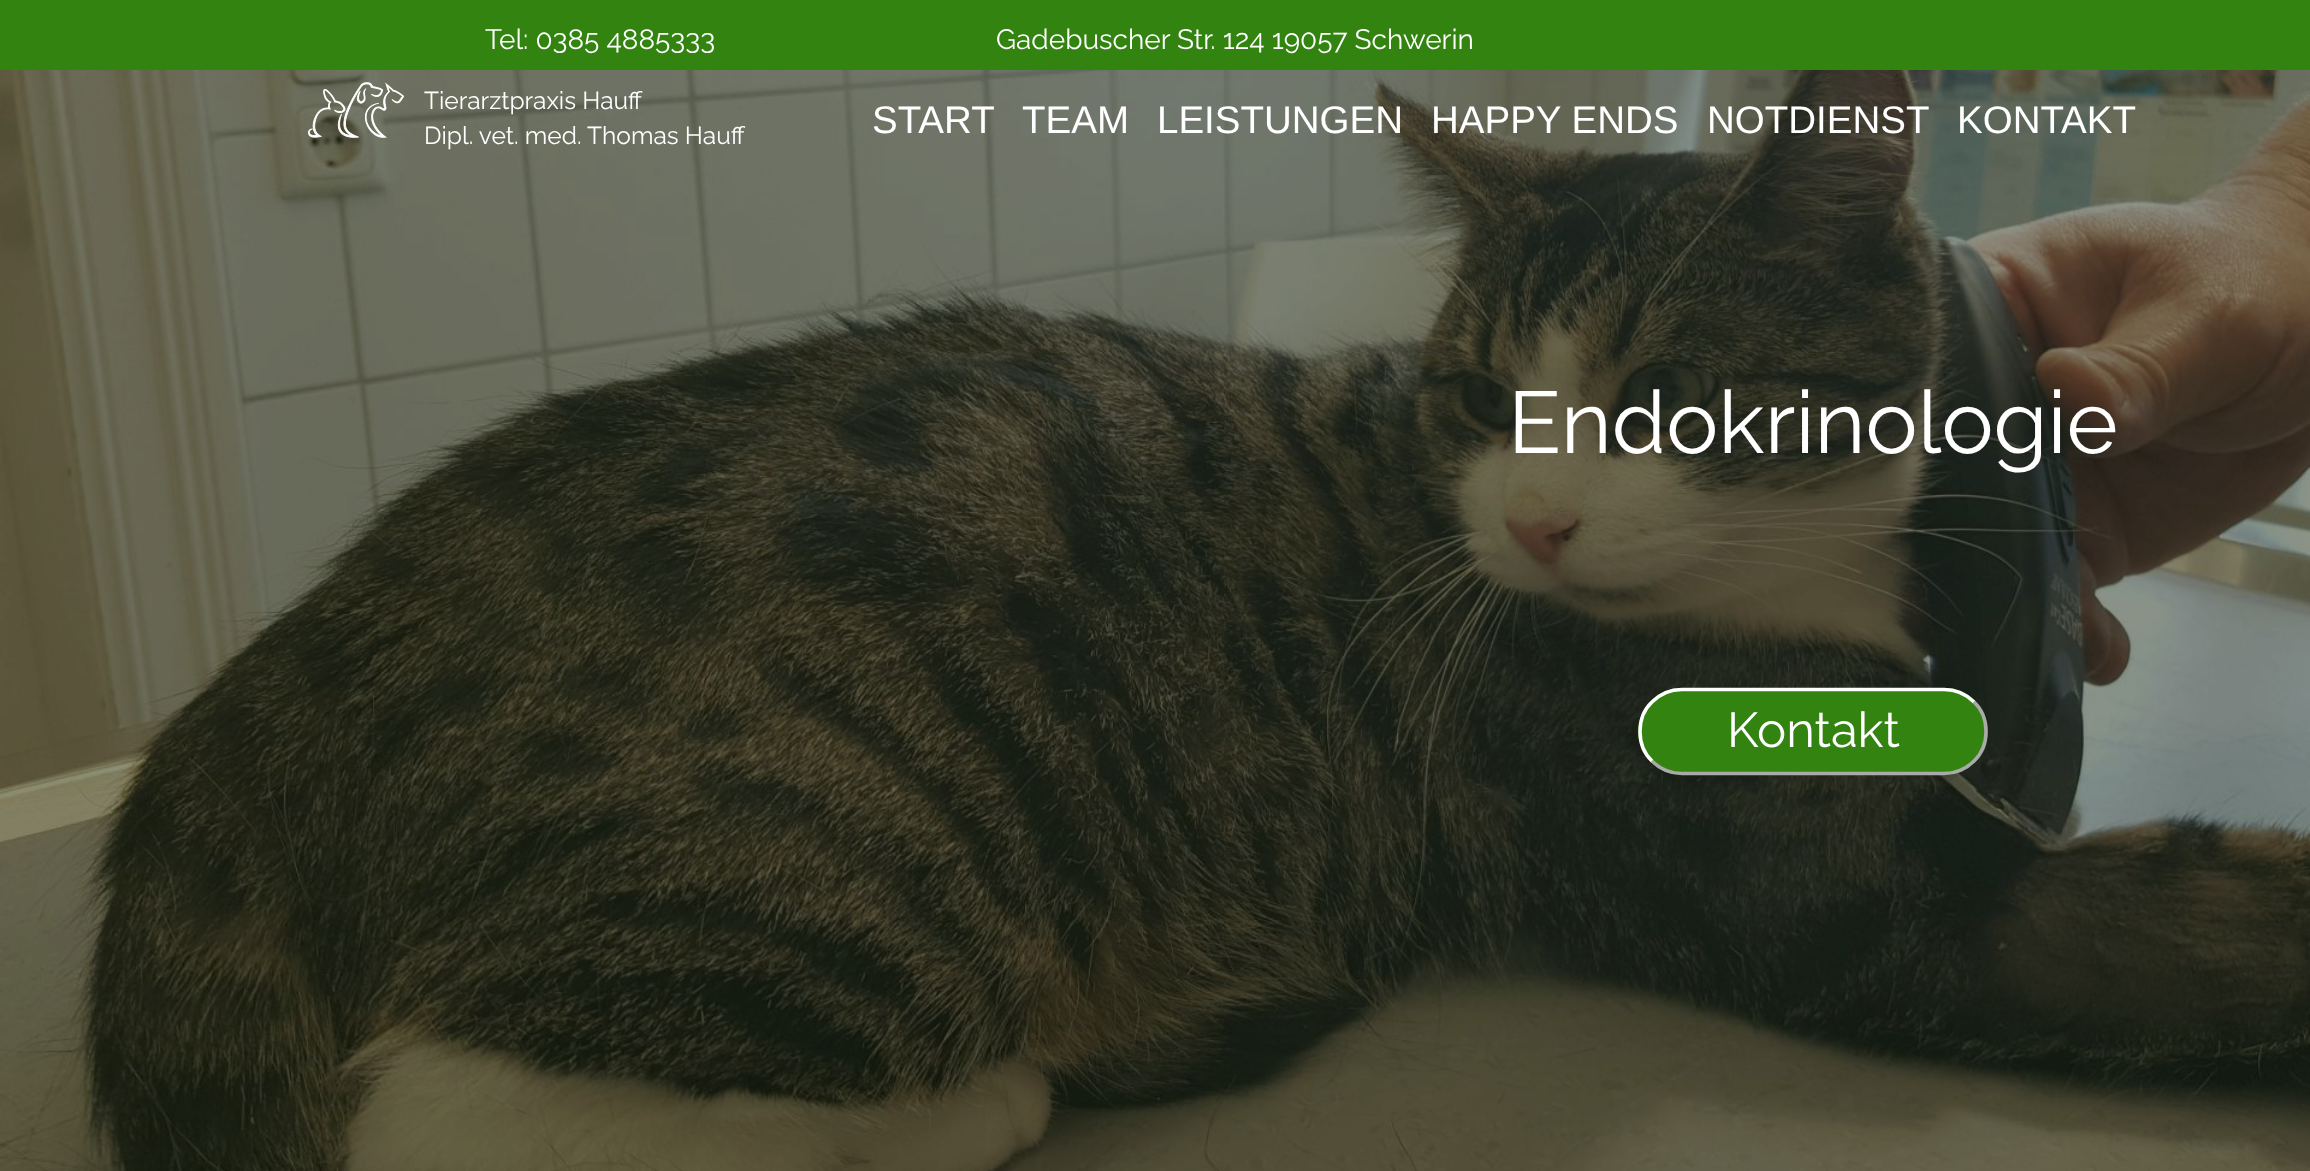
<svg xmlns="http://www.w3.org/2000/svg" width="2310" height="1171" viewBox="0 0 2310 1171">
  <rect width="100%" height="100%" fill="#fff"/>
  <path d="M0 0h2310v70H0z" fill="#328310"/>
  <image x="0" y="70" width="2310" height="1101" href="img/2.png"/>
  <image x="308" y="82" width="96" height="56" href="img/1.png"/>
  <rect x="1638" y="688" width="350" height="87" rx="43.5" fill="#328310"/>
  <path d="M1974 702C1982 709.5 1986 720.5 1986 731.5C1986 742.5 1982 753.5 1974 761C1966 769 1955.5 773.5 1944 773.5H1682C1670.5 773.5 1660 769 1652 761" fill="none" stroke="#aaa" stroke-width="3.5"/>
  <path d="M1652 761C1644 753.5 1640 742.5 1640 731.5C1640 720.5 1644 709.5 1652 702C1660 694 1670.5 689.5 1682 689.5H1944C1955.5 689.5 1966 694 1974 702" fill="none" stroke="#fff" stroke-width="3.5"/>
  <g font-family="Raleway" font-size="28" fill="#fff">
    <text x="485" y="49">Tel: 0385 4885333</text>
    <text x="996" y="49">Gadebuscher Str. 124 19057 Schwerin</text>
  </g>
  <g font-family="Raleway" font-size="24.5" fill="#fff">
    <text x="424" y="109">Tierarztpraxis Hauff</text>
    <text x="424" y="144">Dipl. vet. med. Thomas Hauff</text>
  </g>
  <g font-family="Liberation Sans" font-size="38.5" fill="#fff">
    <text x="872" y="133">START</text>
    <text x="1022" y="133">TEAM</text>
    <text x="1157" y="133">LEISTUNGEN</text>
    <text x="1431" y="133">HAPPY ENDS</text>
    <text x="1707" y="133">NOTDIENST</text>
    <text x="1957" y="133">KONTAKT</text>
  </g>
  <text x="1508" y="453" font-family="Raleway" font-size="87.5" fill="#fff">Endokrinologie</text>
  <text x="1727" y="747" font-family="Raleway" font-size="49" fill="#fff">Kontakt</text>
</svg>
